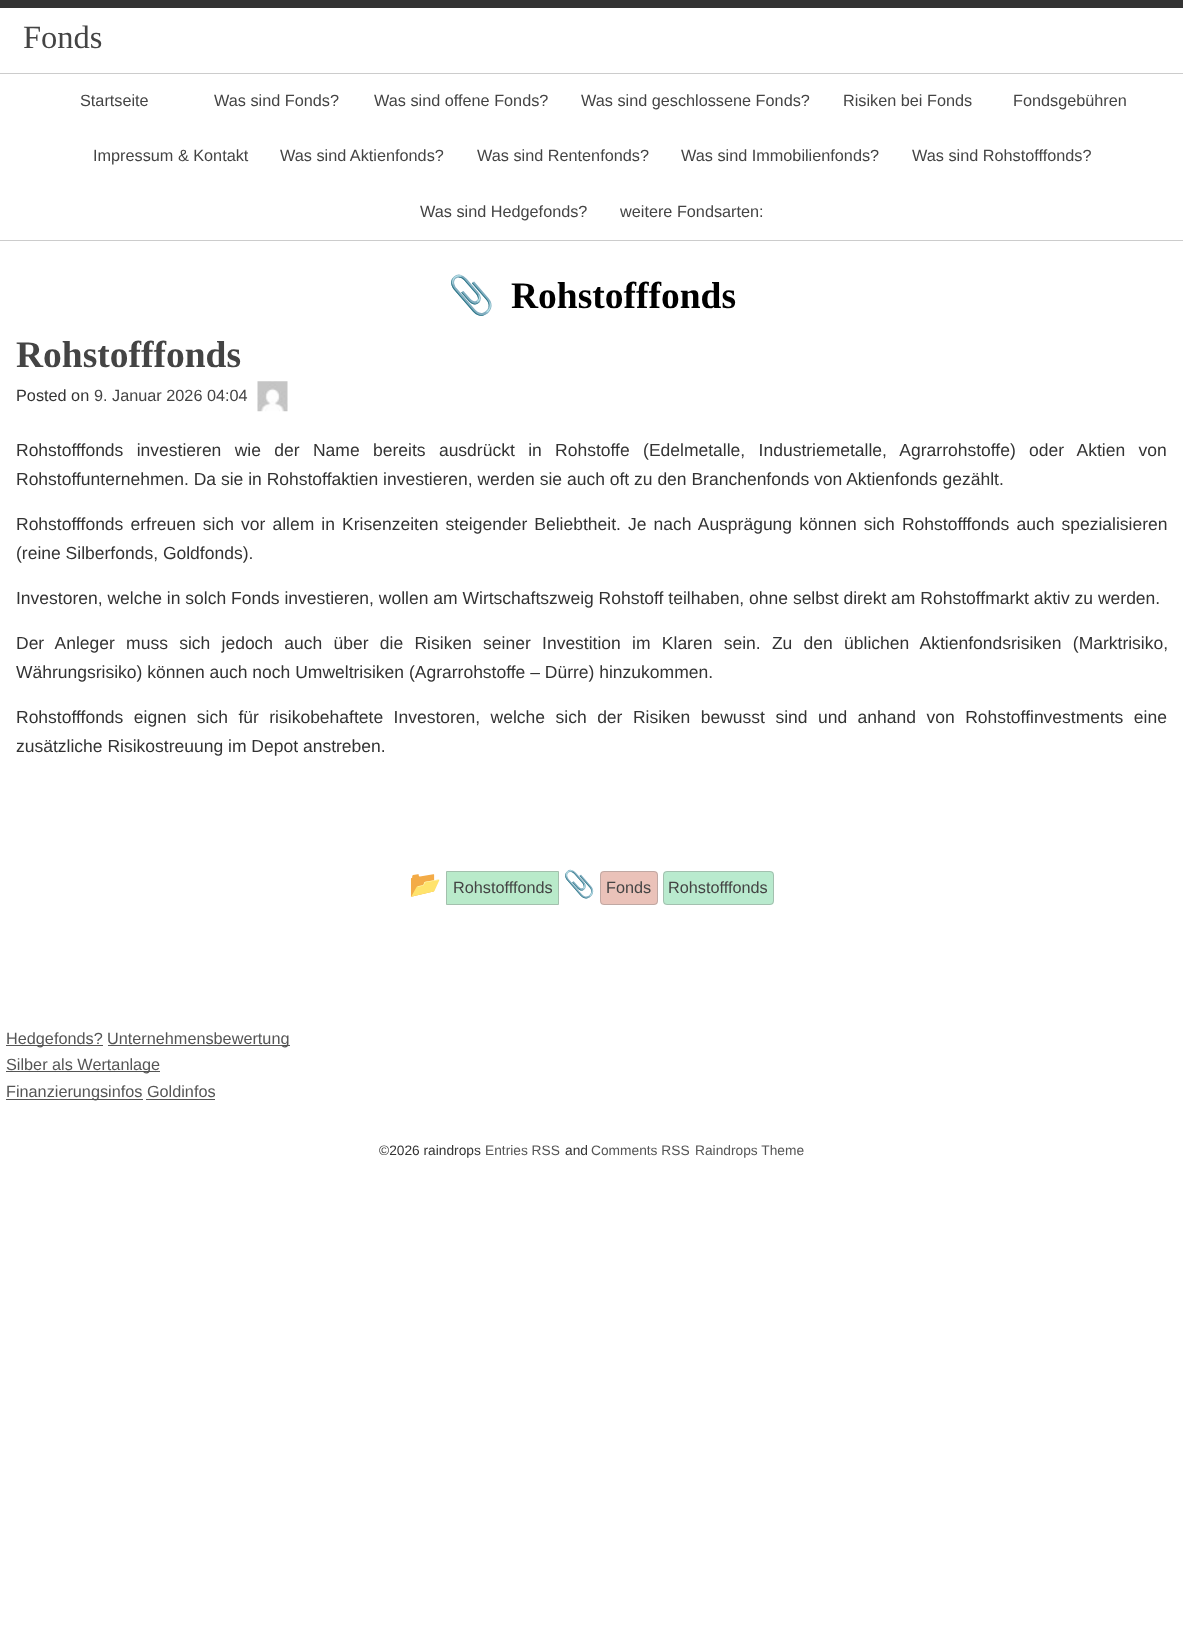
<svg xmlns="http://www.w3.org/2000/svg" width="1183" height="1632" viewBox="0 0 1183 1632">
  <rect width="100%" height="100%" fill="#fff"/>
  <path d="M0 0h1183v8H0z" fill="#333"/>
  <path d="M0 73h1183v1H0z" fill="#ccc"/>
  <path d="M0 240h1183v1H0z" fill="#ccc"/>
  <image x="257" y="381" width="31" height="31" href="img/1.png"/>
  <path d="M446.5 871.5h112v33H446.5z" fill="#b9eaca" stroke="#a3c0ad"/>
  <rect x="600" y="871" width="58" height="34" rx="4" fill="#eac2b9"/>
  <rect x="600.5" y="871.5" width="57" height="33" rx="3.5" fill="none" stroke="#81818166"/>
  <rect x="663" y="871" width="111" height="34" rx="4" fill="#b9eace"/>
  <rect x="663.5" y="871.5" width="110" height="33" rx="3.5" fill="none" stroke="#81818166"/>
  <path d="M6 1045h97v1H6z" fill="#555"/>
  <path d="M108 1045h182v1H108z" fill="#555"/>
  <path d="M6 1071h154v1H6z" fill="#555"/>
  <path d="M6 1099h137v1H6z" fill="#555"/>
  <path d="M146 1099h69v1H146z" fill="#555"/>
  <text x="23" y="48" font-family="Liberation Serif" font-size="32.5" fill="#444">Fonds</text>
  <g font-family="Liberation Sans" font-size="16.25" fill="#444">
    <text x="80" y="106">Startseite</text>
    <text x="214" y="106">Was sind Fonds?</text>
    <text x="374" y="106">Was sind offene Fonds?</text>
    <text x="581" y="106">Was sind geschlossene Fonds?</text>
    <text x="843" y="106">Risiken bei Fonds</text>
    <text x="1013" y="106">Fondsgebühren</text>
    <text x="93" y="161">Impressum &amp; Kontakt</text>
    <text x="280" y="161">Was sind Aktienfonds?</text>
    <text x="477" y="161">Was sind Rentenfonds?</text>
    <text x="681" y="161">Was sind Immobilienfonds?</text>
    <text x="912" y="161">Was sind Rohstofffonds?</text>
    <text x="420" y="217">Was sind Hedgefonds?</text>
    <text x="620" y="217">weitere Fondsarten:</text>
  </g>
  <text x="448" y="308" font-family="Noto Color Emoji" font-size="37.5" font-weight="bold" fill="#000">📎</text>
  <text x="511" y="308" font-family="Liberation Serif" font-size="37.5" font-weight="bold" fill="#000">Rohstofffonds</text>
  <text x="16" y="367" font-family="Liberation Serif" font-size="37.5" font-weight="bold" fill="#444">Rohstofffonds</text>
  <text x="16" y="401" font-family="Liberation Sans" font-size="16.25" fill="#333">Posted on</text>
  <text x="94" y="401" font-family="Liberation Sans" font-size="16.25" fill="#444">9. Januar 2026 04:04</text>
  <g font-family="Liberation Sans" font-size="17.5" fill="#333">
    <text x="16" y="456" word-spacing="8.5">Rohstofffonds investieren wie der Name bereits ausdrückt in Rohstoffe (Edelmetalle, Industriemetalle, Agrarrohstoffe) oder Aktien von</text>
    <text x="16" y="485">Rohstoffunternehmen. Da sie in Rohstoffaktien investieren, werden sie auch oft zu den Branchenfonds von Aktienfonds gezählt.</text>
    <text x="16" y="530" word-spacing="2.25">Rohstofffonds erfreuen sich vor allem in Krisenzeiten steigender Beliebtheit. Je nach Ausprägung können sich Rohstofffonds auch spezialisieren</text>
    <text x="16" y="559">(reine Silberfonds, Goldfonds).</text>
    <text x="16" y="604">Investoren, welche in solch Fonds investieren, wollen am Wirtschaftszweig Rohstoff teilhaben, ohne selbst direkt am Rohstoffmarkt aktiv zu werden.</text>
    <text x="16" y="649" word-spacing="6.4">Der Anleger muss sich jedoch auch über die Risiken seiner Investition im Klaren sein. Zu den üblichen Aktienfondsrisiken (Marktrisiko,</text>
    <text x="16" y="678">Währungsrisiko) können auch noch Umweltrisiken (Agrarrohstoffe – Dürre) hinzukommen.</text>
    <text x="16" y="723" word-spacing="5.6">Rohstofffonds eignen sich für risikobehaftete Investoren, welche sich der Risiken bewusst sind und anhand von Rohstoffinvestments eine</text>
    <text x="16" y="752">zusätzliche Risikostreuung im Depot anstreben.</text>
  </g>
  <text x="409" y="893" font-family="Noto Color Emoji" font-size="26" fill="#333">📂</text>
  <text x="453" y="893" font-family="Liberation Sans" font-size="16.25" fill="#444">Rohstofffonds</text>
  <text x="563" y="893" font-family="Noto Color Emoji" font-size="26" fill="#333">📎</text>
  <g font-family="Liberation Sans" font-size="16.25" fill="#444">
    <text x="606" y="893">Fonds</text>
    <text x="668" y="893">Rohstofffonds</text>
  </g>
  <g font-family="Liberation Sans" font-size="16.25" fill="#555">
    <text x="6" y="1044">Hedgefonds?</text>
    <text x="107" y="1044">Unternehmensbewertung</text>
    <text x="6" y="1070">Silber als Wertanlage</text>
    <text x="6" y="1097">Finanzierungsinfos Goldinfos</text>
  </g>
  <text x="379" y="1155" font-family="Liberation Sans" font-size="13.75" fill="#333">©2026 raindrops</text>
  <text x="485" y="1155" font-family="Liberation Sans" font-size="13.75" fill="#555">Entries RSS</text>
  <text x="565" y="1155" font-family="Liberation Sans" font-size="13.75" fill="#333">and</text>
  <g font-family="Liberation Sans" font-size="13.75" fill="#555">
    <text x="591" y="1155">Comments RSS</text>
    <text x="695" y="1155">Raindrops Theme</text>
  </g>
</svg>
